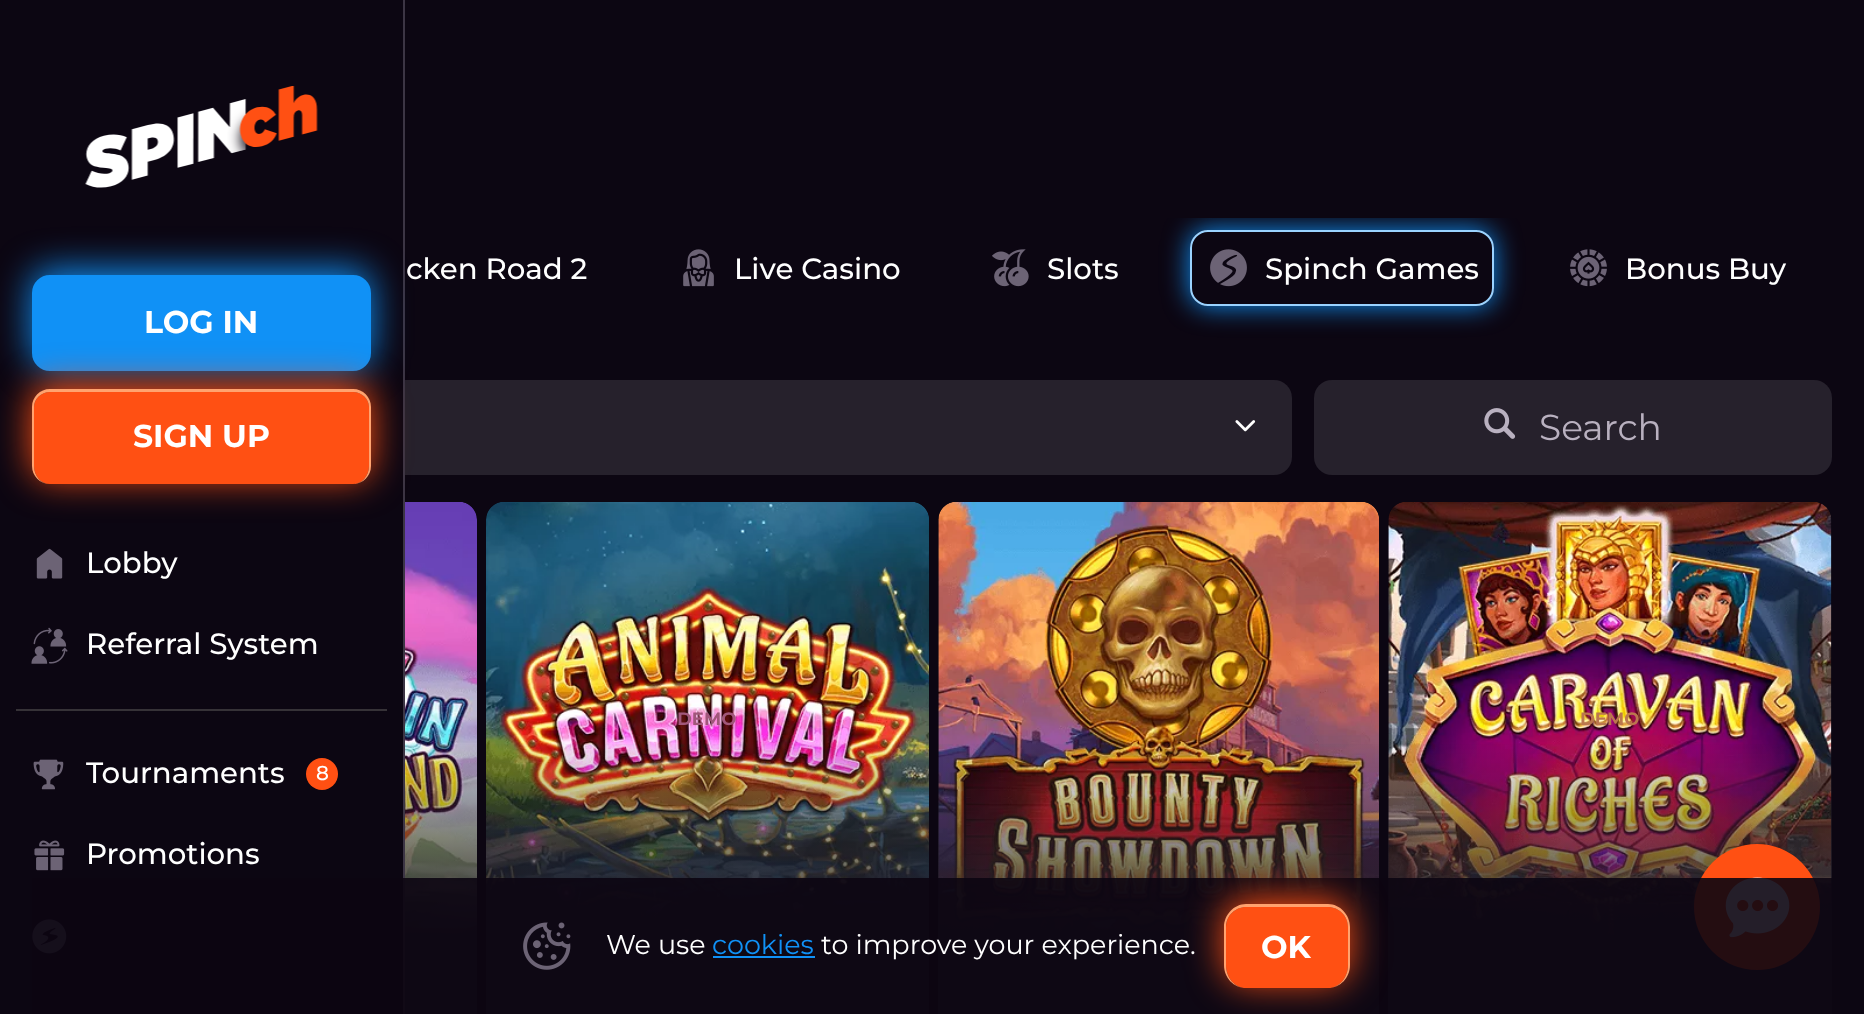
<svg xmlns="http://www.w3.org/2000/svg" width="1864" height="1014" viewBox="0 0 1864 1014">
  <defs>
    <clipPath id="clip1"><path d="M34 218h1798v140H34z"/></clipPath>
    <clipPath id="clip2"><path d="M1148 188H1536V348H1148ZM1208 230H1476C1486 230 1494 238 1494 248V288C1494 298 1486 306 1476 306H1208C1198 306 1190 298 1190 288V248C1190 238 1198 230 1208 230Z" clip-rule="evenodd"/></clipPath>
    <linearGradient id="g1" gradientUnits="userSpaceOnUse" x1="255" y1="740" x2="255" y2="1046"><stop offset="0" stop-color="#26212c" stop-opacity="0"/><stop offset="0.64" stop-color="#26212c"/></linearGradient>
    <linearGradient id="g2" gradientUnits="userSpaceOnUse" x1="708" y1="740" x2="708" y2="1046"><stop offset="0" stop-color="#26212c" stop-opacity="0"/><stop offset="0.64" stop-color="#26212c"/></linearGradient>
    <linearGradient id="g3" gradientUnits="userSpaceOnUse" x1="1159" y1="740" x2="1159" y2="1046"><stop offset="0" stop-color="#26212c" stop-opacity="0"/><stop offset="0.64" stop-color="#26212c"/></linearGradient>
    <linearGradient id="g4" gradientUnits="userSpaceOnUse" x1="1610" y1="740" x2="1610" y2="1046"><stop offset="0" stop-color="#26212c" stop-opacity="0"/><stop offset="0.64" stop-color="#26212c"/></linearGradient>
  </defs>
  <rect width="100%" height="100%" fill="#0c0612"/>
  <rect x="34" y="380" width="1258" height="95" rx="18" fill="#26212c"/>
  <path d="M34 380h369v95H34z" fill="#0c0612"/>
  <path d="M403 0h2v1014H403z" fill="#3c3544"/>
  <image x="85" y="86" width="233" height="102" href="img/1.png"/>
  <rect x="32" y="270" width="339" height="97" rx="18" fill="#1091f6" filter="blur(18px)"/>
  <rect x="33" y="276" width="337" height="94" rx="17" fill="#1091f6" stroke="#1091f6" stroke-width="2"/>
  <image x="405" y="502" width="72" height="433" href="img/13.png"/>
  <rect x="32" y="385" width="339" height="94" rx="18" fill="#ff5013" filter="blur(18px)"/>
  <path d="M50 392H353C362 392 369 399 369 407V466C369 476 362 484 353 484H50C41 484 34 476 34 466V407C34 399 41 392 50 392Z" fill="#ff5013"/>
  <path d="M50 389H353C363 389 371 397 371 407V466C371 476 363 484 353 484H50C40 484 32 476 32 466V407C32 397 40 389 50 389ZM50 392H353C362 392 369 399 369 407V466C369 476 362 484 353 484H50C41 484 34 476 34 466V407C34 399 41 392 50 392Z" fill="#ffa36f" fill-rule="evenodd"/>
  <path d="M16 709h371v2H16z" fill="#363237"/>
  <image x="36" y="548" width="27" height="31" href="img/2.png"/>
  <image x="31" y="627" width="37" height="37" href="img/3.png"/>
  <image x="33" y="759" width="31" height="31" href="img/4.png"/>
  <circle cx="322" cy="774" r="16" fill="#ff5013"/>
  <image x="34" y="840" width="31" height="31" href="img/5.png"/>
  <image x="32" y="919" width="35" height="35" href="img/6.png"/>
  <image x="683" y="249" width="31" height="38" href="img/7.png"/>
  <image x="992" y="249" width="37" height="38" href="img/8.png"/>
  <g clip-path="url(#clip1)">
    <g clip-path="url(#clip2)">
      <rect x="1190" y="230" width="304" height="76" rx="18" fill="#1091f6" filter="blur(13.5px)"/>
    </g>
  </g>
  <rect x="1191" y="231" width="302" height="74" rx="17" fill="none" stroke="#9bd3ff" stroke-width="2"/>
  <image x="1210" y="249" width="37" height="38" href="img/9.png"/>
  <image x="1570" y="249" width="37" height="38" href="img/10.png"/>
  <image x="1235" y="420" width="21" height="12" href="img/11.png"/>
  <rect x="1314" y="380" width="518" height="95" rx="18" fill="#26212c"/>
  <image x="1484" y="408" width="32" height="31" href="img/12.png"/>
  <path d="M405 744h72v270H405z" fill="url(#g1)"/>
  <image x="486" y="502" width="443" height="433" href="img/14.png"/>
  <path d="M486 744h443v270H486z" fill="url(#g2)"/>
  <image x="938" y="502" width="441" height="433" href="img/15.png"/>
  <path d="M938 744h441v270H938z" fill="url(#g3)"/>
  <image x="1388" y="502" width="444" height="433" href="img/16.png"/>
  <path d="M1388 744h444v270H1388z" fill="url(#g4)"/>
  <circle cx="1757" cy="907" r="63" fill="#ff5013"/>
  <image x="1725" y="877" width="65" height="61" href="img/17.png"/>
  <path d="M32 878h1800v136H32z" fill="#0c0612e6"/>
  <image x="523" y="922" width="48" height="48" href="img/18.png"/>
  <path d="M713 956h102v2H713z" fill="#1091f6"/>
  <rect x="1224" y="900" width="126" height="83" rx="23" fill="#ff5013" filter="blur(18px)"/>
  <path d="M1246 907H1328C1339 907 1348 916 1348 927V965C1348 978 1339 988 1328 988H1246C1235 988 1226 978 1226 965V927C1226 916 1235 907 1246 907Z" fill="#ff5013"/>
  <path d="M1246 904H1328C1340 904 1350 915 1350 927V965C1350 978 1340 988 1328 988H1246C1234 988 1224 978 1224 965V927C1224 915 1234 904 1246 904ZM1246 907H1328C1339 907 1348 916 1348 927V965C1348 978 1339 988 1328 988H1246C1235 988 1226 978 1226 965V927C1226 916 1235 907 1246 907Z" fill="#ffa36f" fill-rule="evenodd"/>
  <g font-family="Montserrat" font-size="31.5" font-weight="bold" fill="#fff">
    <text x="144" y="333">LOG IN</text>
    <text x="133" y="447">SIGN UP</text>
  </g>
  <g font-family="Montserrat" font-size="29.25" font-weight="500" fill="#fff">
    <text x="86" y="573">Lobby</text>
    <text x="86" y="654">Referral System</text>
    <text x="86" y="783">Tournaments</text>
  </g>
  <text x="316" y="780" font-family="Montserrat" font-size="20" font-weight="500" fill="#fff">8</text>
  <g font-family="Montserrat" font-size="29.25" font-weight="500" fill="#fff">
    <text x="86" y="864">Promotions</text>
    <text x="406" y="279">cken Road 2</text>
    <text x="734" y="279">Live Casino</text>
    <text x="1047" y="279">Slots</text>
    <text x="1265" y="279">Spinch Games</text>
    <text x="1625" y="279">Bonus Buy</text>
  </g>
  <text x="1539" y="440" font-family="Montserrat" font-size="36" fill="#b9b1c0">Search</text>
  <text x="677" y="725" font-family="Montserrat" font-size="18" font-weight="bold" fill="#a1577b">DEMO</text>
  <text x="1580" y="725" font-family="Montserrat" font-size="18" font-weight="bold" fill="#bb774e">DEMO</text>
  <text x="606" y="954" font-family="Montserrat" font-size="27" fill="#fff">We use</text>
  <text x="712" y="954" font-family="Montserrat" font-size="27" fill="#1091f6">cookies</text>
  <text x="821" y="954" font-family="Montserrat" font-size="27" fill="#fff">to improve your experience.</text>
  <text x="1261" y="958" font-family="Montserrat" font-size="31.5" font-weight="bold" fill="#fff">OK</text>
</svg>
